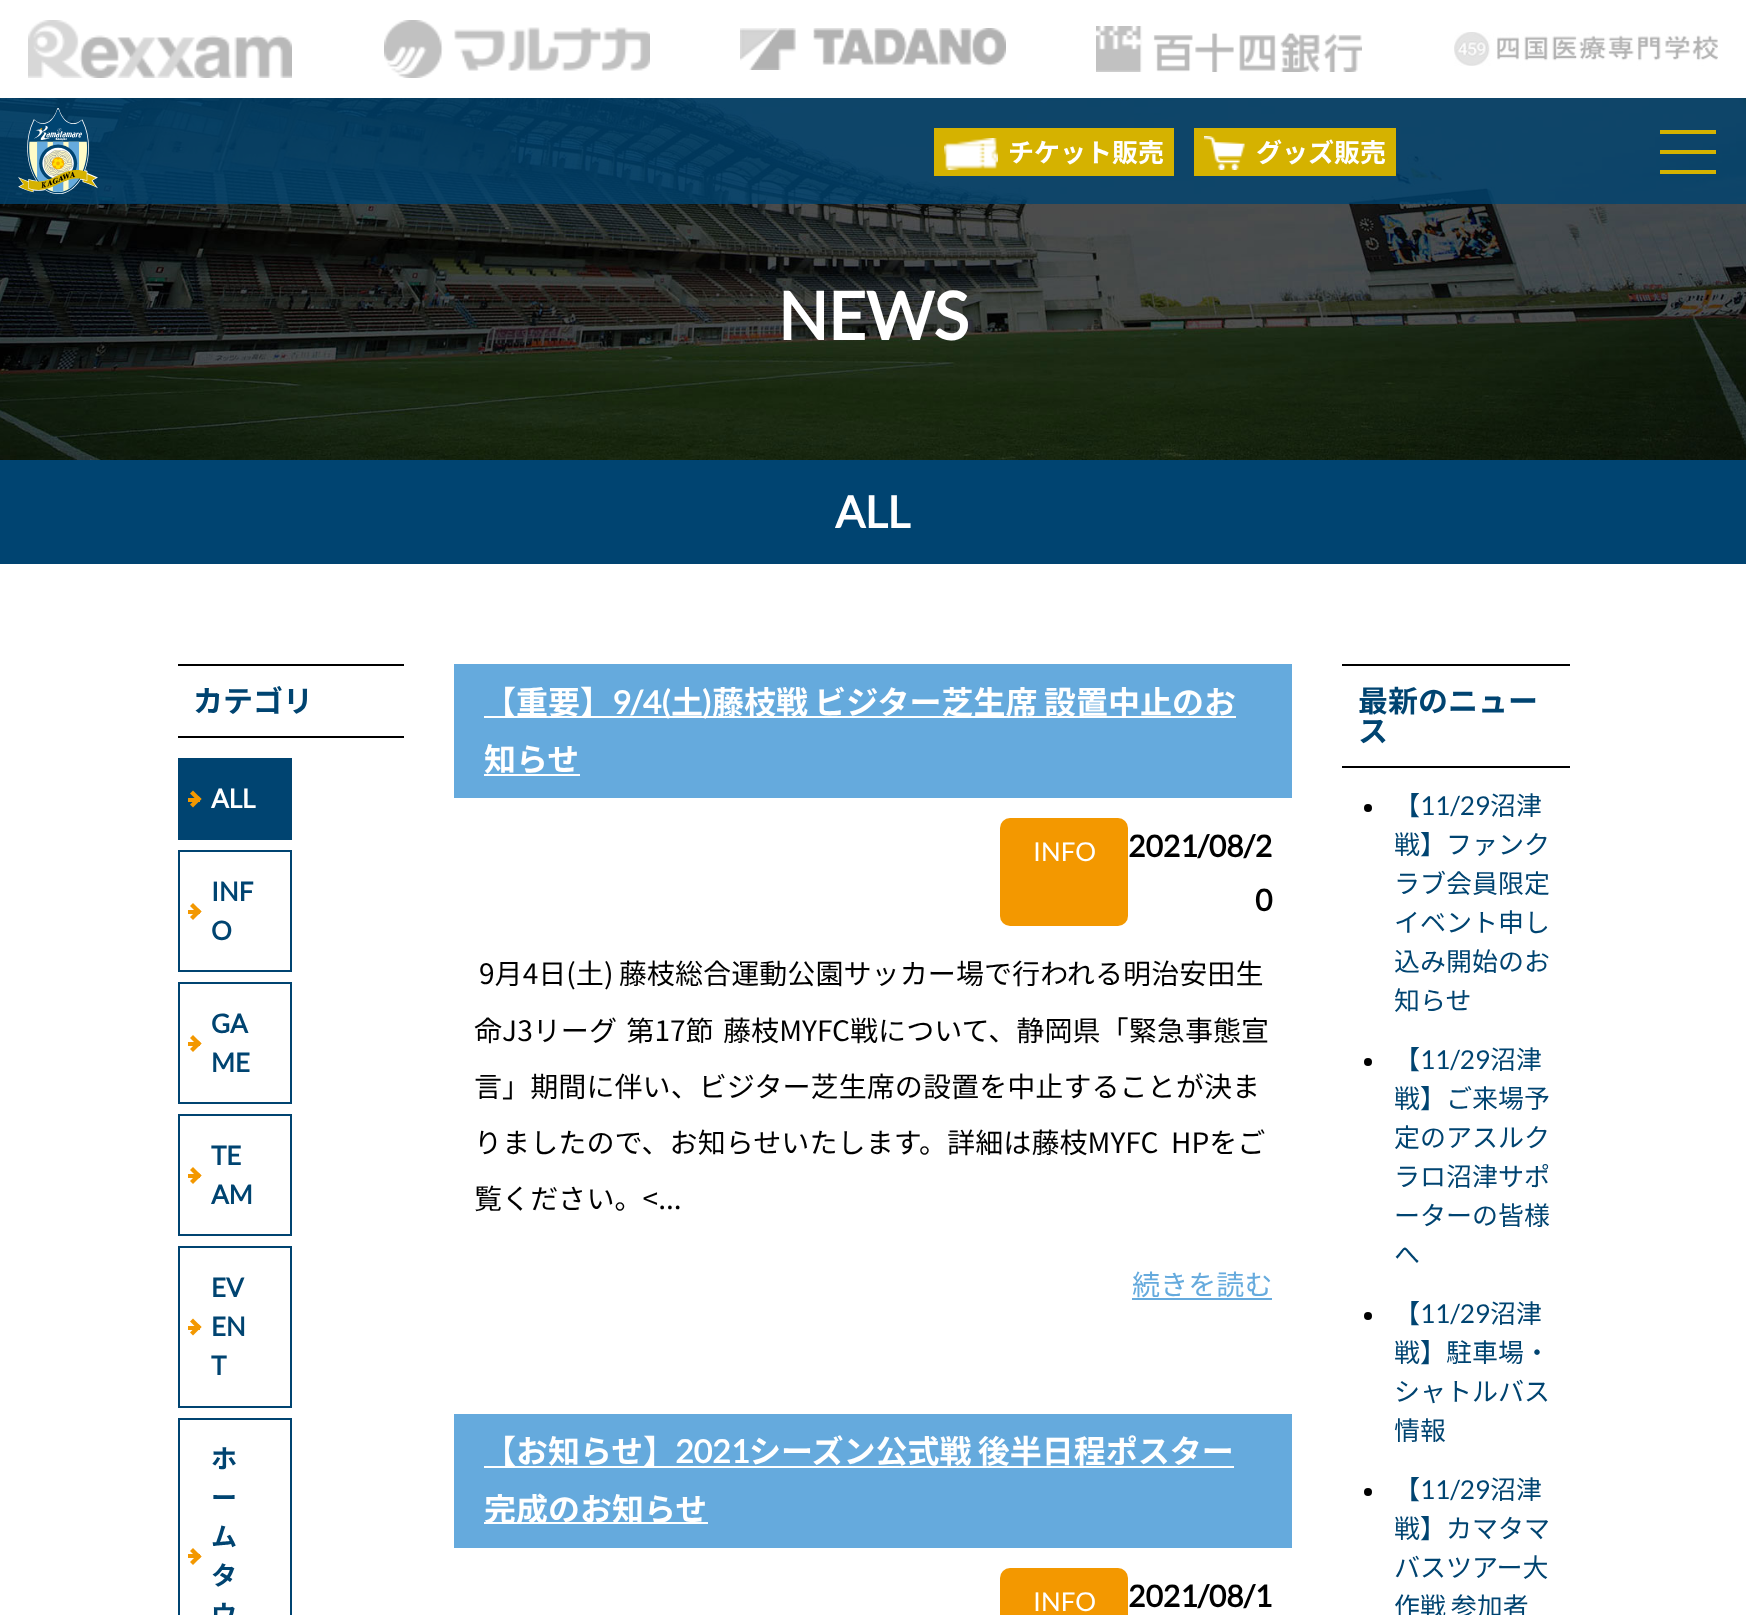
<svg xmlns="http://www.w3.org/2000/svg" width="1746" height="1615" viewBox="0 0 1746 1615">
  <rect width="100%" height="100%" fill="#fff"/>
  <image x="0" y="98" width="1746" height="362" href="img/1.png"/>
  <image x="28" y="20" width="264" height="58" href="img/2.png"/>
  <image x="384" y="20" width="266" height="58" href="img/3.png"/>
  <image x="740" y="28" width="266" height="42" href="img/4.png"/>
  <image x="1096" y="26" width="266" height="46" href="img/5.png"/>
  <image x="1454" y="32" width="264" height="34" href="img/6.png"/>
  <path d="M0 98h1746v106H0z" fill="#004471cc"/>
  <image x="18" y="108" width="80" height="86" href="img/7.png"/>
  <path d="M934 128h240v48H934z" fill="#d5b200"/>
  <image x="944" y="138" width="54" height="32" href="img/8.png"/>
  <path d="M1194 128h202v48H1194z" fill="#d5b200"/>
  <image x="1204" y="136" width="41" height="34" href="img/9.png"/>
  <path d="M1660 130h56v4H1660z" fill="#d5b200"/>
  <path d="M1660 150h56v4H1660z" fill="#d5b200"/>
  <path d="M1660 170h56v4H1660z" fill="#d5b200"/>
  <path d="M0 460h1746v104H0z" fill="#004471"/>
  <path d="M178 664h226v2H178z" fill="#000"/>
  <path d="M178 736h226v2H178z" fill="#000"/>
  <path d="M179 759h112v80H179z" fill="none" stroke="#004471" stroke-width="2"/>
  <path d="M180 760h110v78H180z" fill="#004471"/>
  <path d="M188 798h12v4H188z" fill="#f39800"/>
  <path d="M193 790.5L201.5 799L198.5 802L190 793.5Z" fill="#f39800"/>
  <path d="M198.5 796L201.5 799L193 807.5L190 804.5Z" fill="#f39800"/>
  <path d="M179 851h112v120H179z" fill="none" stroke="#004471" stroke-width="2"/>
  <path d="M188 910h12v4H188z" fill="#f39800"/>
  <path d="M193 903L201.5 911.5L198.5 914.5L190 906Z" fill="#f39800"/>
  <path d="M198.5 908.5L201.5 911.5L193 920L190 917Z" fill="#f39800"/>
  <path d="M179 983h112v120H179z" fill="none" stroke="#004471" stroke-width="2"/>
  <path d="M188 1042h12v4H188z" fill="#f39800"/>
  <path d="M193 1035L201.5 1043.5L198.5 1046.5L190 1038Z" fill="#f39800"/>
  <path d="M198.5 1040.5L201.5 1043.5L193 1052L190 1049Z" fill="#f39800"/>
  <path d="M179 1115h112v120H179z" fill="none" stroke="#004471" stroke-width="2"/>
  <path d="M188 1174h12v4H188z" fill="#f39800"/>
  <path d="M193 1167L201.5 1175.5L198.5 1178.5L190 1170Z" fill="#f39800"/>
  <path d="M198.5 1172.5L201.5 1175.5L193 1184L190 1181Z" fill="#f39800"/>
  <path d="M179 1247h112v160H179z" fill="none" stroke="#004471" stroke-width="2"/>
  <path d="M188 1326h12v4H188z" fill="#f39800"/>
  <path d="M193 1318.5L201.5 1327L198.5 1330L190 1321.5Z" fill="#f39800"/>
  <path d="M198.5 1324L201.5 1327L193 1335.5L190 1332.5Z" fill="#f39800"/>
  <path d="M179 1419h112v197H179z" fill="none" stroke="#004471" stroke-width="2"/>
  <path d="M188 1554h12v4H188z" fill="#f39800"/>
  <path d="M193 1548L201.5 1556.5L198.5 1559.5L190 1551Z" fill="#f39800"/>
  <path d="M198.5 1553.5L201.5 1556.5L193 1565L190 1562Z" fill="#f39800"/>
  <path d="M454 664h838v134H454z" fill="#65aadd"/>
  <path d="M484 716h752v2H484z" fill="#fff"/>
  <path d="M484 774h96v2H484z" fill="#fff"/>
  <rect x="1000" y="818" width="128" height="108" rx="10" fill="#f39800"/>
  <path d="M1132 1298h140v2H1132z" fill="#65aadd"/>
  <path d="M454 1414h838v134H454z" fill="#65aadd"/>
  <path d="M484 1466h750v2H484z" fill="#fff"/>
  <path d="M484 1522h224v2H484z" fill="#fff"/>
  <rect x="1000" y="1568" width="128" height="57" rx="10" fill="#f39800"/>
  <path d="M1342 664h228v2H1342z" fill="#000"/>
  <path d="M1342 766h228v2H1342z" fill="#000"/>
  <circle cx="1368" cy="808" r="4" fill="#000"/>
  <circle cx="1368" cy="1062" r="4" fill="#000"/>
  <circle cx="1368" cy="1316" r="4" fill="#000"/>
  <circle cx="1368" cy="1492" r="4" fill="#000"/>
  <g font-family="Noto Sans JP" font-size="26" font-weight="bold" fill="#fff">
    <text x="1008" y="162">チケット販売</text>
    <text x="1256" y="162">グッズ販売</text>
  </g>
  <text x="778" y="340" font-family="Lato" font-size="66" font-weight="bold" fill="#fff">NEWS</text>
  <text x="835" y="528" font-family="Lato" font-size="44" font-weight="bold" fill="#fff">ALL</text>
  <text x="193" y="712" font-family="Noto Sans JP" font-size="30" font-weight="bold" fill="#004471">カテゴリ</text>
  <text x="211" y="808" font-family="Lato" font-size="26" font-weight="bold" fill="#fff">ALL</text>
  <g font-family="Lato" font-size="26" font-weight="bold" fill="#004471">
    <text x="211" y="901">INF</text>
    <text x="211" y="940">O</text>
    <text x="211" y="1033">GA</text>
    <text x="211" y="1072">ME</text>
    <text x="211" y="1165">TE</text>
    <text x="211" y="1204">AM</text>
    <text x="211" y="1297">EV</text>
    <text x="211" y="1336">EN</text>
    <text x="211" y="1375">T</text>
  </g>
  <g font-family="Noto Sans JP" font-size="26" font-weight="bold" fill="#004471">
    <text x="211" y="1468">ホ</text>
    <text x="211" y="1507">ー</text>
    <text x="211" y="1546">ム</text>
    <text x="211" y="1585">タ</text>
    <text x="211" y="1624">ウ</text>
  </g>
  <text x="484" y="714" font-family="Noto Sans JP" font-size="32" font-weight="bold" fill="#fff">【重要】</text>
  <text x="612" y="714" font-family="Lato" font-size="32" font-weight="bold" fill="#fff">9/4(</text>
  <text x="671" y="714" font-family="Noto Sans JP" font-size="32" font-weight="bold" fill="#fff">土</text>
  <text x="702" y="714" font-family="Lato" font-size="32" font-weight="bold" fill="#fff">)</text>
  <g font-family="Noto Sans JP" font-size="32" font-weight="bold" fill="#fff">
    <text x="712" y="714" word-spacing="-1">藤枝戦 ビジター芝生席 設置中止のお</text>
    <text x="484" y="771">知らせ</text>
  </g>
  <text x="1033" y="861" font-family="Lato" font-size="26" fill="#fff">INFO</text>
  <g font-family="Lato" font-size="30" font-weight="bold" fill="#000">
    <text x="1128" y="857">2021/08/2</text>
    <text x="1255" y="911">0</text>
  </g>
  <g font-family="Noto Sans JP" font-size="28.1" fill="#000">
    <text x="479" y="984" word-spacing="-1">9月4日(土) 藤枝総合運動公園サッカー場で行われる明治安田生</text>
    <text x="474" y="1041" word-spacing="3">命J3リーグ 第17節 藤枝MYFC戦について、静岡県「緊急事態宣</text>
    <text x="474" y="1097">言」期間に伴い、ビジター芝生席の設置を中止することが決ま</text>
    <text x="474" y="1153">りましたので、お知らせいたします。詳細は藤枝MYFC</text>
    <text x="1171" y="1153">HPをご</text>
    <text x="474" y="1209">覧ください。&lt;...</text>
  </g>
  <text x="1132" y="1295" font-family="Noto Sans JP" font-size="28.1" fill="#65aadd">続きを読む</text>
  <text x="484" y="1463" font-family="Noto Sans JP" font-size="32" font-weight="bold" fill="#fff">【お知らせ】</text>
  <text x="675" y="1463" font-family="Lato" font-size="32" font-weight="bold" fill="#fff">2021</text>
  <g font-family="Noto Sans JP" font-size="32" font-weight="bold" fill="#fff">
    <text x="749" y="1463" word-spacing="-1">シーズン公式戦 後半日程ポスター</text>
    <text x="484" y="1521">完成のお知らせ</text>
  </g>
  <text x="1033" y="1611" font-family="Lato" font-size="26" fill="#fff">INFO</text>
  <text x="1128" y="1607" font-family="Lato" font-size="30" font-weight="bold" fill="#000">2021/08/1</text>
  <g font-family="Noto Sans JP" font-size="30" font-weight="bold" fill="#004471">
    <text x="1358" y="712">最新のニュー</text>
    <text x="1358" y="742">ス</text>
  </g>
  <text x="1394" y="815" font-family="Noto Sans JP" font-size="26" fill="#004471">【</text>
  <text x="1420" y="815" font-family="Lato" font-size="26" fill="#004471">11/29</text>
  <g font-family="Noto Sans JP" font-size="26" fill="#004471">
    <text x="1490" y="815">沼津</text>
    <text x="1394" y="854">戦】ファンク</text>
    <text x="1394" y="893">ラブ会員限定</text>
    <text x="1394" y="932">イベント申し</text>
    <text x="1394" y="971">込み開始のお</text>
    <text x="1394" y="1010">知らせ</text>
    <text x="1394" y="1069">【</text>
  </g>
  <text x="1420" y="1069" font-family="Lato" font-size="26" fill="#004471">11/29</text>
  <g font-family="Noto Sans JP" font-size="26" fill="#004471">
    <text x="1490" y="1069">沼津</text>
    <text x="1394" y="1108">戦】ご来場予</text>
    <text x="1394" y="1147">定のアスルク</text>
    <text x="1394" y="1186">ラロ沼津サポ</text>
    <text x="1394" y="1225">ーターの皆様</text>
    <text x="1394" y="1264">へ</text>
    <text x="1394" y="1323">【</text>
  </g>
  <text x="1420" y="1323" font-family="Lato" font-size="26" fill="#004471">11/29</text>
  <g font-family="Noto Sans JP" font-size="26" fill="#004471">
    <text x="1490" y="1323">沼津</text>
    <text x="1394" y="1362">戦】駐車場・</text>
    <text x="1394" y="1401">シャトルバス</text>
    <text x="1394" y="1440">情報</text>
    <text x="1394" y="1499">【</text>
  </g>
  <text x="1420" y="1499" font-family="Lato" font-size="26" fill="#004471">11/29</text>
  <g font-family="Noto Sans JP" font-size="26" fill="#004471">
    <text x="1490" y="1499">沼津</text>
    <text x="1394" y="1538">戦】カマタマ</text>
    <text x="1394" y="1577">バスツアー大</text>
    <text x="1394" y="1616" word-spacing="-1">作戦 参加者</text>
  </g>
</svg>
